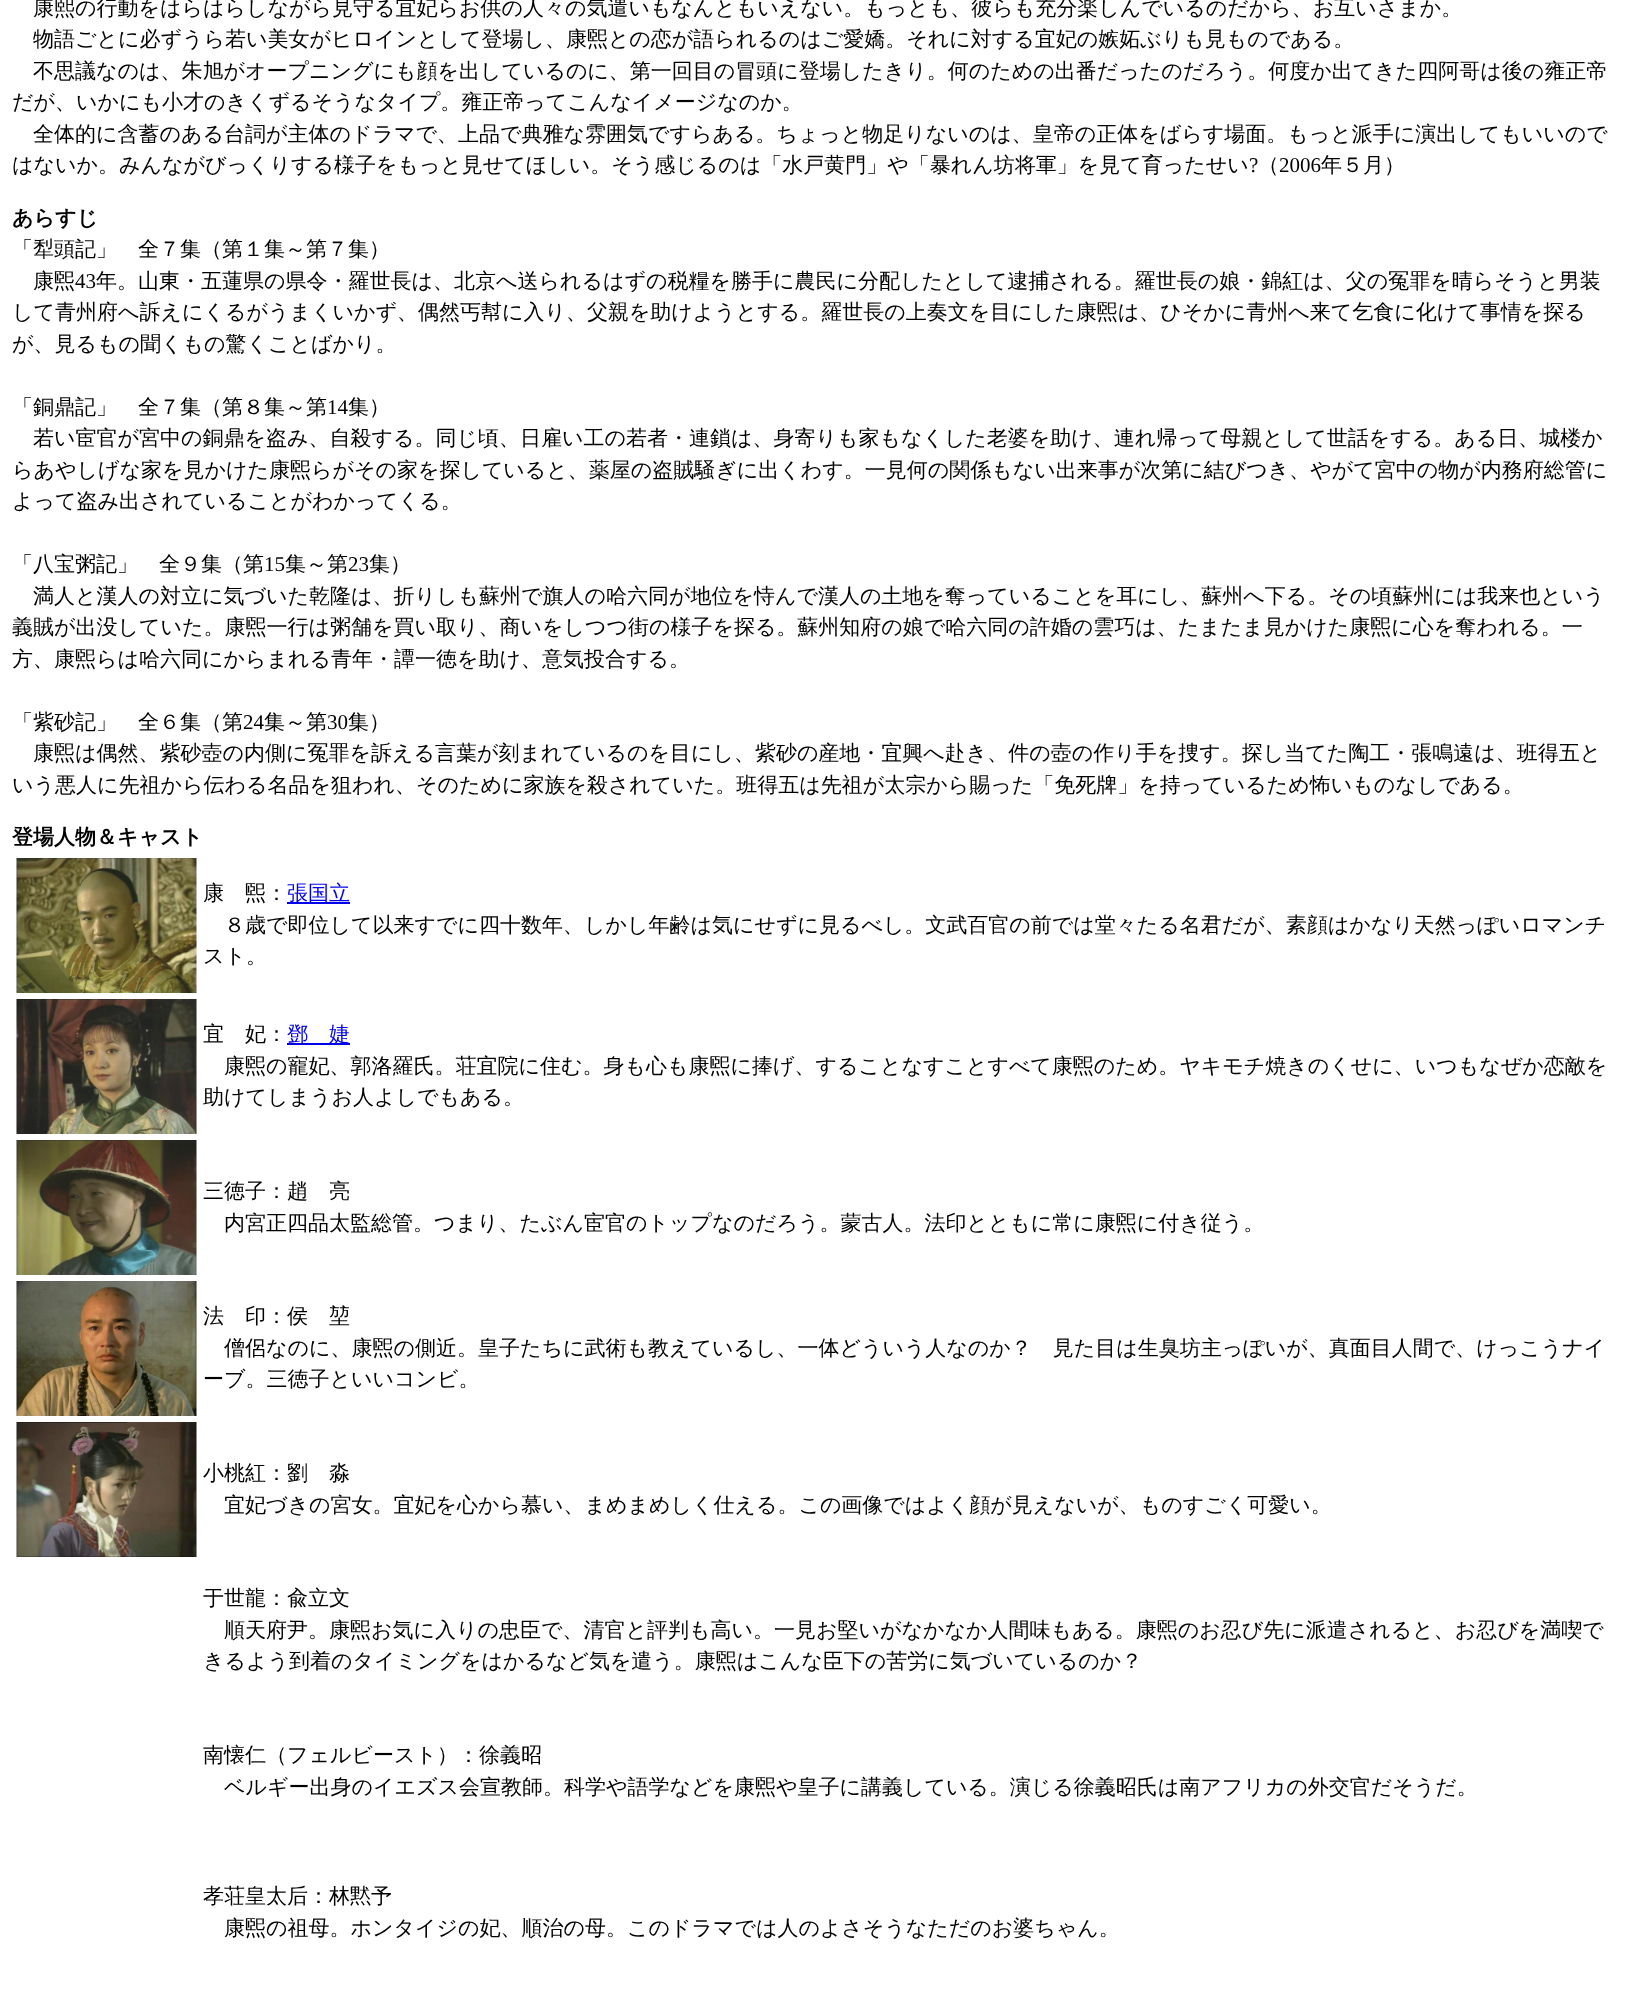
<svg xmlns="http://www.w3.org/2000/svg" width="1629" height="2012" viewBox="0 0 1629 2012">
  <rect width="100%" height="100%" fill="#fff"/>
  <image x="16" y="858" width="181" height="135" href="img/1.png"/>
  <path d="M287 902h63v2H287z" fill="#00e"/>
  <image x="16" y="999" width="181" height="135" href="img/2.png"/>
  <path d="M287 1043h63v2H287z" fill="#00e"/>
  <image x="16" y="1140" width="181" height="135" href="img/3.png"/>
  <image x="16" y="1281" width="181" height="135" href="img/4.png"/>
  <image x="16" y="1422" width="181" height="135" href="img/5.png"/>
  <g font-family="WenQuanYi Zen Hei" font-size="21" font-weight="500" fill="#000">
    <text x="33" y="15">康熙の行動をはらはらしながら見守る宜妃らお供の人々の気遣いもなんともいえない。もっとも、彼らも充分楽しんでいるのだから、お互いさまか。</text>
    <text x="33" y="46">物語ごとに必ずうら若い美女がヒロインとして登場し、康煕との恋が語られるのはご愛嬌。それに対する宜妃の嫉妬ぶりも見ものである。</text>
    <text x="33" y="78">不思議なのは、朱旭がオープニングにも顔を出しているのに、第一回目の冒頭に登場したきり。何のための出番だったのだろう。何度か出てきた四阿哥は後の雍正帝</text>
    <text x="12" y="109">だが、いかにも小才のきくずるそうなタイプ。雍正帝ってこんなイメージなのか。</text>
    <text x="33" y="141">全体的に含蓄のある台詞が主体のドラマで、上品で典雅な雰囲気ですらある。ちょっと物足りないのは、皇帝の正体をばらす場面。もっと派手に演出してもいいので</text>
    <text x="12" y="172">はないか。みんながびっくりする様子をもっと見せてほしい。そう感じるのは「水戸黄門」や「暴れん坊将軍」を見て育ったせい</text>
  </g>
  <text x="1249" y="172" font-family="Liberation Serif" font-size="21" fill="#000">?</text>
  <text x="1258" y="172" font-family="WenQuanYi Zen Hei" font-size="21" font-weight="500" fill="#000">（</text>
  <text x="1279" y="172" font-family="Liberation Serif" font-size="21" fill="#000">2006</text>
  <text x="1321" y="172" font-family="WenQuanYi Zen Hei" font-size="21" font-weight="500" fill="#000">年５月）</text>
  <text x="12" y="225" font-family="WenQuanYi Zen Hei" font-size="21" font-weight="bold" fill="#000">あらすじ</text>
  <g font-family="WenQuanYi Zen Hei" font-size="21" font-weight="500" fill="#000">
    <text x="12" y="256">「犁頭記」　全７集（第１集～第７集）</text>
    <text x="33" y="288">康煕</text>
  </g>
  <text x="75" y="288" font-family="Liberation Serif" font-size="21" fill="#000">43</text>
  <g font-family="WenQuanYi Zen Hei" font-size="21" font-weight="500" fill="#000">
    <text x="96" y="288">年。山東・五蓮県の県令・羅世長は、北京へ送られるはずの税糧を勝手に農民に分配したとして逮捕される。羅世長の娘・錦紅は、父の冤罪を晴らそうと男装</text>
    <text x="12" y="319">して青州府へ訴えにくるがうまくいかず、偶然丐幇に入り、父親を助けようとする。羅世長の上奏文を目にした康煕は、ひそかに青州へ来て乞食に化けて事情を探る</text>
    <text x="12" y="351">が、見るもの聞くもの驚くことばかり。</text>
    <text x="12" y="414">「銅鼎記」　全７集（第８集～第</text>
  </g>
  <text x="327" y="414" font-family="Liberation Serif" font-size="21" fill="#000">14</text>
  <g font-family="WenQuanYi Zen Hei" font-size="21" font-weight="500" fill="#000">
    <text x="348" y="414">集）</text>
    <text x="33" y="445">若い宦官が宮中の銅鼎を盗み、自殺する。同じ頃、日雇い工の若者・連鎖は、身寄りも家もなくした老婆を助け、連れ帰って母親として世話をする。ある日、城楼か</text>
    <text x="12" y="477">らあやしげな家を見かけた康煕らがその家を探していると、薬屋の盗賊騒ぎに出くわす。一見何の関係もない出来事が次第に結びつき、やがて宮中の物が内務府総管に</text>
    <text x="12" y="508">よって盗み出されていることがわかってくる。</text>
    <text x="12" y="571">「八宝粥記」　全９集（第</text>
  </g>
  <text x="264" y="571" font-family="Liberation Serif" font-size="21" fill="#000">15</text>
  <text x="285" y="571" font-family="WenQuanYi Zen Hei" font-size="21" font-weight="500" fill="#000">集～第</text>
  <text x="348" y="571" font-family="Liberation Serif" font-size="21" fill="#000">23</text>
  <g font-family="WenQuanYi Zen Hei" font-size="21" font-weight="500" fill="#000">
    <text x="369" y="571">集）</text>
    <text x="33" y="603">満人と漢人の対立に気づいた乾隆は、折りしも蘇州で旗人の哈六同が地位を恃んで漢人の土地を奪っていることを耳にし、蘇州へ下る。その頃蘇州には我来也という</text>
    <text x="12" y="634">義賊が出没していた。康煕一行は粥舗を買い取り、商いをしつつ街の様子を探る。蘇州知府の娘で哈六同の許婚の雲巧は、たまたま見かけた康煕に心を奪われる。一</text>
    <text x="12" y="666">方、康煕らは哈六同にからまれる青年・譚一徳を助け、意気投合する。</text>
    <text x="12" y="729">「紫砂記」　全６集（第</text>
  </g>
  <text x="243" y="729" font-family="Liberation Serif" font-size="21" fill="#000">24</text>
  <text x="264" y="729" font-family="WenQuanYi Zen Hei" font-size="21" font-weight="500" fill="#000">集～第</text>
  <text x="327" y="729" font-family="Liberation Serif" font-size="21" fill="#000">30</text>
  <g font-family="WenQuanYi Zen Hei" font-size="21" font-weight="500" fill="#000">
    <text x="348" y="729">集）</text>
    <text x="33" y="760">康煕は偶然、紫砂壺の内側に冤罪を訴える言葉が刻まれているのを目にし、紫砂の産地・宜興へ赴き、件の壺の作り手を捜す。探し当てた陶工・張鳴遠は、班得五と</text>
    <text x="12" y="792">いう悪人に先祖から伝わる名品を狙われ、そのために家族を殺されていた。班得五は先祖が太宗から賜った「免死牌」を持っているため怖いものなしである。</text>
  </g>
  <text x="12" y="844" font-family="WenQuanYi Zen Hei" font-size="21" font-weight="bold" fill="#000">登場人物＆キャスト</text>
  <text x="203" y="900" font-family="WenQuanYi Zen Hei" font-size="21" font-weight="500" fill="#000">康　煕：</text>
  <text x="287" y="900" font-family="WenQuanYi Zen Hei" font-size="21" font-weight="500" fill="#00e">張国立</text>
  <g font-family="WenQuanYi Zen Hei" font-size="21" font-weight="500" fill="#000">
    <text x="224" y="932">８歳で即位して以来すでに四十数年、しかし年齢は気にせずに見るべし。文武百官の前では堂々たる名君だが、素顔はかなり天然っぽいロマンチ</text>
    <text x="203" y="963">スト。</text>
    <text x="203" y="1041">宜　妃：</text>
  </g>
  <text x="287" y="1041" font-family="WenQuanYi Zen Hei" font-size="21" font-weight="500" fill="#00e">鄧　婕</text>
  <g font-family="WenQuanYi Zen Hei" font-size="21" font-weight="500" fill="#000">
    <text x="224" y="1073">康煕の寵妃、郭洛羅氏。荘宜院に住む。身も心も康煕に捧げ、することなすことすべて康煕のため。ヤキモチ焼きのくせに、いつもなぜか恋敵を</text>
    <text x="203" y="1104">助けてしまうお人よしでもある。</text>
    <text x="203" y="1198">三徳子：趙　亮</text>
    <text x="224" y="1230">内宮正四品太監総管。つまり、たぶん宦官のトップなのだろう。蒙古人。法印とともに常に康煕に付き従う。</text>
    <text x="203" y="1323">法　印：侯　堃</text>
    <text x="224" y="1355">僧侶なのに、康煕の側近。皇子たちに武術も教えているし、一体どういう人なのか？　見た目は生臭坊主っぽいが、真面目人間で、けっこうナイ</text>
    <text x="203" y="1386">ーブ。三徳子といいコンビ。</text>
    <text x="203" y="1480">小桃紅：劉　淼</text>
    <text x="224" y="1512">宜妃づきの宮女。宜妃を心から慕い、まめまめしく仕える。この画像ではよく顔が見えないが、ものすごく可愛い。</text>
    <text x="203" y="1605">于世龍：兪立文</text>
    <text x="224" y="1637">順天府尹。康煕お気に入りの忠臣で、清官と評判も高い。一見お堅いがなかなか人間味もある。康煕のお忍び先に派遣されると、お忍びを満喫で</text>
    <text x="203" y="1668">きるよう到着のタイミングをはかるなど気を遣う。康煕はこんな臣下の苦労に気づいているのか？</text>
    <text x="203" y="1762">南懐仁（フェルビースト）：徐義昭</text>
    <text x="224" y="1794">ベルギー出身のイエズス会宣教師。科学や語学などを康煕や皇子に講義している。演じる徐義昭氏は南アフリカの外交官だそうだ。</text>
    <text x="203" y="1903">孝荘皇太后：林黙予</text>
    <text x="224" y="1935">康煕の祖母。ホンタイジの妃、順治の母。このドラマでは人のよさそうなただのお婆ちゃん。</text>
  </g>
</svg>
